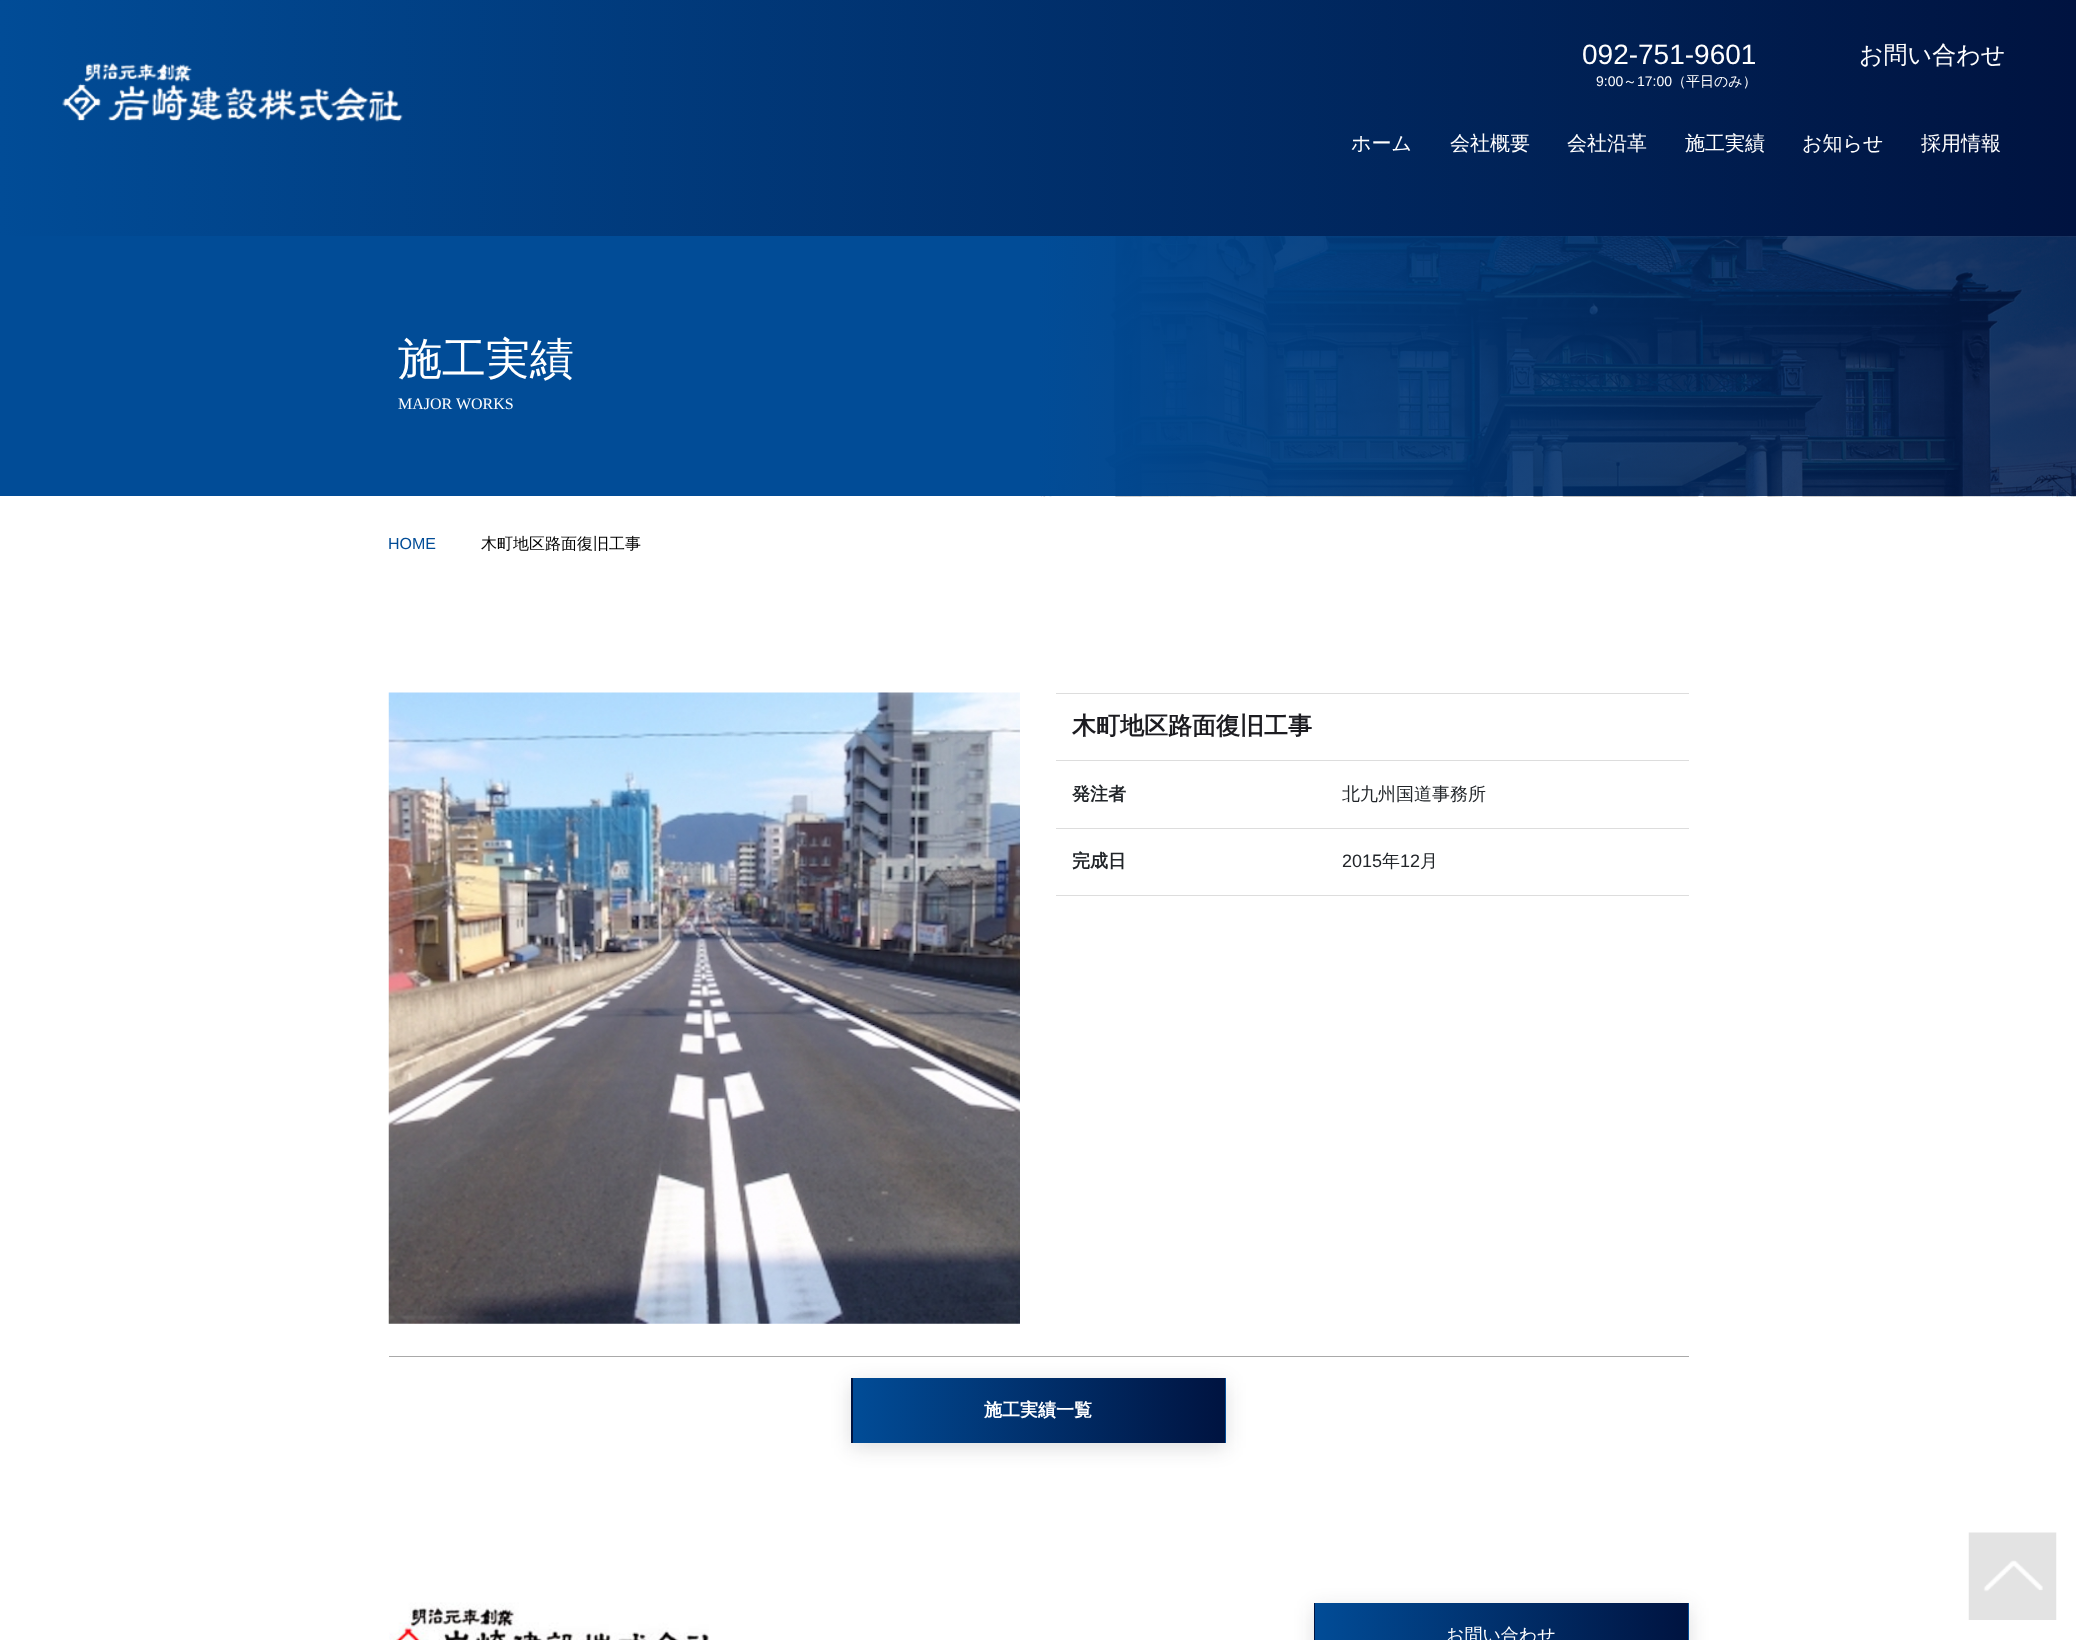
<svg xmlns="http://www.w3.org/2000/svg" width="2076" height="1640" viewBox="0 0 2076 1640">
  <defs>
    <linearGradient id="g1" gradientUnits="userSpaceOnUse" x1="0" y1="118" x2="2076" y2="118"><stop offset="0" stop-color="#014c97"/><stop offset="1" stop-color="#001340"/></linearGradient>
    <linearGradient id="g2" gradientUnits="userSpaceOnUse" x1="0" y1="366" x2="2076" y2="366"><stop offset="0.5" stop-color="#014c97"/><stop offset="1" stop-color="#001340" stop-opacity="0.8"/></linearGradient>
    <linearGradient id="g3" gradientUnits="userSpaceOnUse" x1="480" y1="1410" x2="853" y2="1410"><stop offset="0" stop-color="#014c97"/><stop offset="1" stop-color="#001340"/></linearGradient>
    <linearGradient id="g4" gradientUnits="userSpaceOnUse" x1="853" y1="1410" x2="1225" y2="1410"><stop offset="0" stop-color="#014c97"/><stop offset="1" stop-color="#001340"/></linearGradient>
    <linearGradient id="g5" gradientUnits="userSpaceOnUse" x1="1225" y1="1410" x2="1598" y2="1410"><stop offset="0" stop-color="#014c97"/><stop offset="1" stop-color="#001340"/></linearGradient>
    <linearGradient id="g6" gradientUnits="userSpaceOnUse" x1="943" y1="1636" x2="1315" y2="1636"><stop offset="0" stop-color="#014c97"/><stop offset="1" stop-color="#001340"/></linearGradient>
    <linearGradient id="g7" gradientUnits="userSpaceOnUse" x1="1315" y1="1636" x2="1688" y2="1636"><stop offset="0" stop-color="#014c97"/><stop offset="1" stop-color="#001340"/></linearGradient>
    <linearGradient id="g8" gradientUnits="userSpaceOnUse" x1="1688" y1="1636" x2="2060" y2="1636"><stop offset="0" stop-color="#014c97"/><stop offset="1" stop-color="#001340"/></linearGradient>
  </defs>
  <rect width="100%" height="100%" fill="#f6f4f4"/>
  <path d="M0 0h2076v236H0z" fill="url(#g1)"/>
  <image x="62" y="62" width="341" height="60" href="img/1.png"/>
  <path d="M0 496h2076v1047H0z" fill="#fff"/>
  <image x="1038" y="236" width="1038" height="261" href="img/2.png"/>
  <path d="M0 236h2076v260H0z" fill="url(#g2)"/>
  <image x="388" y="692" width="632" height="632" href="img/3.png"/>
  <path d="M1056 693h633v1H1056z" fill="#ddd"/>
  <path d="M1056 760h633v1H1056z" fill="#ddd"/>
  <path d="M1056 828h633v1H1056z" fill="#ddd"/>
  <path d="M1056 895h633v1H1056z" fill="#ddd"/>
  <path d="M389 1356h1300v1H389z" fill="#a9a9a9"/>
  <path d="M851 1383h375v65H851z" fill="#1c1c2126" filter="blur(10px)"/>
  <path d="M851 1378h2v65H851z" fill="url(#g3)"/>
  <path d="M853 1378h372v65H853z" fill="url(#g4)"/>
  <path d="M1225 1378h1v65H1225z" fill="url(#g5)"/>
  <path d="M0 1543h2076v97H0z" fill="#fff"/>
  <image x="1968" y="1532" width="89" height="88" href="img/4.png"/>
  <image x="389" y="1602" width="320" height="38" href="img/5.png"/>
  <path d="M1314 1608h375v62H1314z" fill="#1c1c2126" filter="blur(10px)"/>
  <path d="M1314 1603h1v37H1314z" fill="url(#g6)"/>
  <path d="M1315 1603h373v37H1315z" fill="url(#g7)"/>
  <path d="M1688 1603h1v37H1688z" fill="url(#g8)"/>
  <text x="1582" y="64" font-family="Liberation Sans" font-size="28" fill="#fff">092-751-9601</text>
  <text x="1596" y="86" font-family="Liberation Sans" font-size="14" fill="#fff">9:00</text>
  <text x="1623" y="86" font-family="WenQuanYi Zen Hei" font-size="14" font-weight="500" fill="#fff">～</text>
  <text x="1637" y="86" font-family="Liberation Sans" font-size="14" fill="#fff">17:00</text>
  <text x="1672" y="86" font-family="WenQuanYi Zen Hei" font-size="14" font-weight="500" fill="#fff">（平日のみ）</text>
  <text x="1859" y="63" font-family="WenQuanYi Zen Hei" font-size="24" font-weight="500" fill="#fff">お問い合わせ</text>
  <g font-family="WenQuanYi Zen Hei" font-size="20" font-weight="500" fill="#fff">
    <text x="1351" y="150">ホーム</text>
    <text x="1450" y="150">会社概要</text>
    <text x="1567" y="150">会社沿革</text>
    <text x="1685" y="150">施工実績</text>
    <text x="1802" y="150">お知らせ</text>
    <text x="1921" y="150">採用情報</text>
  </g>
  <text x="398" y="374" font-family="WenQuanYi Zen Hei" font-size="44" font-weight="500" fill="#fff">施工実績</text>
  <text x="398" y="409" font-family="Liberation Serif" font-size="16" fill="#fff">MAJOR WORKS</text>
  <text x="388" y="549" font-family="Liberation Sans" font-size="16" fill="#014c97">HOME</text>
  <text x="481" y="549" font-family="WenQuanYi Zen Hei" font-size="16" font-weight="500" fill="#000">木町地区路面復旧工事</text>
  <text x="1072" y="734" font-family="WenQuanYi Zen Hei" font-size="24" font-weight="bold" fill="#1c1c21">木町地区路面復旧工事</text>
  <text x="1072" y="800" font-family="WenQuanYi Zen Hei" font-size="18" font-weight="bold" fill="#212529">発注者</text>
  <text x="1342" y="800" font-family="WenQuanYi Zen Hei" font-size="18" font-weight="500" fill="#212529">北九州国道事務所</text>
  <text x="1072" y="867" font-family="WenQuanYi Zen Hei" font-size="18" font-weight="bold" fill="#212529">完成日</text>
  <text x="1342" y="867" font-family="Liberation Sans" font-size="18" fill="#212529">2015</text>
  <text x="1382" y="867" font-family="WenQuanYi Zen Hei" font-size="18" font-weight="500" fill="#212529">年</text>
  <text x="1400" y="867" font-family="Liberation Sans" font-size="18" fill="#212529">12</text>
  <text x="1420" y="867" font-family="WenQuanYi Zen Hei" font-size="18" font-weight="500" fill="#212529">月</text>
  <text x="984" y="1416" font-family="WenQuanYi Zen Hei" font-size="18" font-weight="bold" fill="#fff">施工実績一覧</text>
  <text x="1446" y="1641" font-family="WenQuanYi Zen Hei" font-size="18" font-weight="500" fill="#fff">お問い合わせ</text>
</svg>
